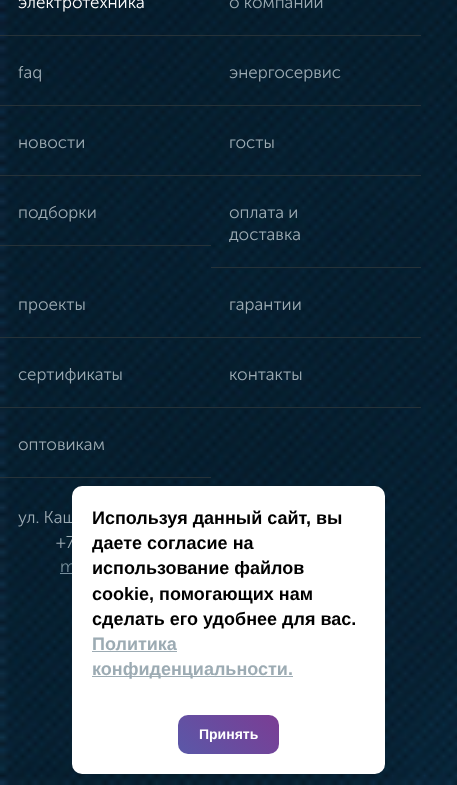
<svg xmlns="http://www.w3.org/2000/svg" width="457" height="785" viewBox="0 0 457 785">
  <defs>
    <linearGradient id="g1" gradientUnits="userSpaceOnUse" x1="194" y1="770" x2="264" y2="700"><stop offset="0" stop-color="#5a58a8"/><stop offset="1" stop-color="#7b3d94"/></linearGradient>
  </defs>
  <rect width="100%" height="100%" fill="#fff"/>
  <image x="0" y="0" width="457" height="785" href="img/1.png"/>
  <path d="M0 35h421v1H0z" fill="#263238"/>
  <path d="M0 105h421v1H0z" fill="#263238"/>
  <path d="M0 175h421v1H0z" fill="#263238"/>
  <path d="M0 245h211v1H0z" fill="#263238"/>
  <path d="M211 267h210v1H211z" fill="#263238"/>
  <path d="M0 337h421v1H0z" fill="#263238"/>
  <path d="M0 407h421v1H0z" fill="#263238"/>
  <path d="M0 477h211v1H0z" fill="#263238"/>
  <path d="M60 573h12v1H60z" fill="#78909c"/>
  <text x="18" y="8" font-family="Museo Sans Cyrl" font-size="17" font-weight="300" fill="#fff">электротехника</text>
  <g font-family="Museo Sans Cyrl" font-size="17" font-weight="300" fill="#9cabb3">
    <text x="229" y="8">о компании</text>
    <text x="18" y="78">faq</text>
    <text x="229" y="78">энергосервис</text>
    <text x="18" y="148">новости</text>
    <text x="229" y="148">госты</text>
    <text x="18" y="218">подборки</text>
    <text x="229" y="218">оплата и</text>
    <text x="229" y="240">доставка</text>
    <text x="18" y="310">проекты</text>
    <text x="229" y="310">гарантии</text>
    <text x="18" y="380">сертификаты</text>
    <text x="229" y="380">контакты</text>
    <text x="18" y="450">оптовикам</text>
    <text x="18" y="523">ул. Каш</text>
    <text x="56" y="548">+7</text>
  </g>
  <text x="60" y="572" font-family="Museo Sans Cyrl" font-size="17" font-weight="300" fill="#78909c">m</text>
  <rect x="72" y="486" width="313" height="288" rx="10" fill="#fff"/>
  <g font-family="Liberation Sans" font-size="18" font-weight="bold" fill="#000">
    <text x="92" y="524">Используя данный сайт, вы</text>
    <text x="92" y="549">даете согласие на</text>
    <text x="92" y="574">использование файлов</text>
    <text x="92" y="600">cookie, помогающих нам</text>
    <text x="92" y="625">сделать его удобнее для вас.</text>
  </g>
  <text x="92" y="650" font-family="Liberation Sans" font-size="18" font-weight="bold" fill="#9cabb3">Политика</text>
  <path d="M92 651h85v1H92z" fill="#9cabb3"/>
  <path d="M92 676h201v1H92z" fill="#9cabb3"/>
  <text x="92" y="675" font-family="Liberation Sans" font-size="18" font-weight="bold" fill="#9cabb3">конфиденциальности.</text>
  <rect x="178" y="715" width="101" height="39" rx="10" fill="url(#g1)"/>
  <text x="199" y="739" font-family="Liberation Sans" font-size="14" font-weight="bold" fill="#fff">Принять</text>
</svg>
